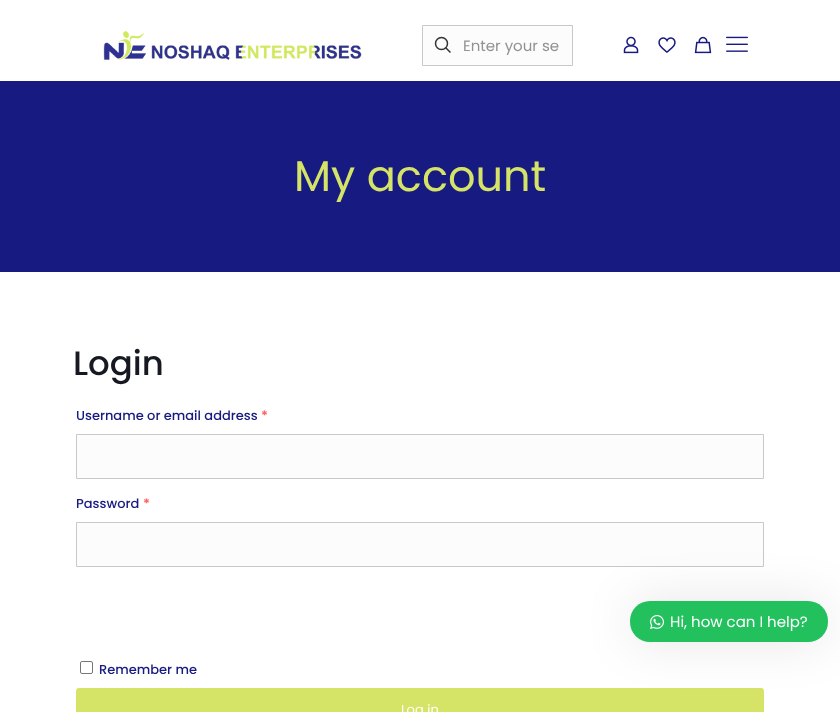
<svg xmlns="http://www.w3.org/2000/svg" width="840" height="712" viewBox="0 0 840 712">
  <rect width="100%" height="100%" fill="#fff"/>
  <image x="103" y="31" width="259" height="29" href="img/1.png"/>
  <path d="M422.5 25.5h150v40H422.5z" fill="#fcfcfc" stroke="#c8c8c8"/>
  <circle cx="441.5" cy="43.5" r="6" fill="none" stroke="#333" stroke-width="1.5"/>
  <path d="M445.5 47.5L450.5 52.5" fill="none" stroke="#333" stroke-width="1.5"/>
  <image x="623" y="36" width="16" height="18" href="img/2.png"/>
  <image x="658" y="37" width="18" height="16" href="img/3.png"/>
  <image x="694" y="36" width="18" height="18" href="img/4.png"/>
  <image x="726" y="36" width="22" height="16" href="img/5.png"/>
  <path d="M0 81h840v191H0z" fill="#171a80"/>
  <path d="M76.5 434.5h687v44H76.5z" fill="#fcfcfc" stroke="#c8c8c8"/>
  <path d="M76.5 522.5h687v44H76.5z" fill="#fcfcfc" stroke="#c8c8c8"/>
  <rect x="80.5" y="661.5" width="12" height="12" rx="1.5" fill="none" stroke="#767676"/>
  <rect x="76" y="688" width="688" height="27" rx="3" fill="#d5e467"/>
  <rect x="630" y="601" width="198" height="41" rx="20" fill="#0000001a" filter="blur(25px)"/>
  <rect x="630" y="601" width="198" height="41" rx="20" fill="#22c15e"/>
  <image x="650" y="615" width="14" height="14" href="img/6.png"/>
  <text x="463" y="51" font-family="Poppins" font-size="15" fill="#929292">Enter your se</text>
  <text x="294" y="191" font-family="Poppins" font-size="43" fill="#d5e467">My account</text>
  <text x="73" y="375" font-family="Poppins" font-size="34" font-weight="500" fill="#161922">Login</text>
  <text x="76" y="420" font-family="Poppins" font-size="13" font-weight="500" fill="#171a80">Username or email address</text>
  <text x="261" y="420" font-family="Poppins" font-size="13" font-weight="bold" fill="#f66">*</text>
  <text x="76" y="508" font-family="Poppins" font-size="13" font-weight="500" fill="#171a80">Password</text>
  <text x="143" y="508" font-family="Poppins" font-size="13" font-weight="bold" fill="#f66">*</text>
  <text x="99" y="674" font-family="Poppins" font-size="13" font-weight="500" fill="#171a80">Remember me</text>
  <text x="401" y="714" font-family="Poppins" font-size="13" fill="#fff">Log in</text>
  <text x="670" y="627" font-family="Poppins" font-size="15" fill="#fff">Hi, how can I help?</text>
</svg>
